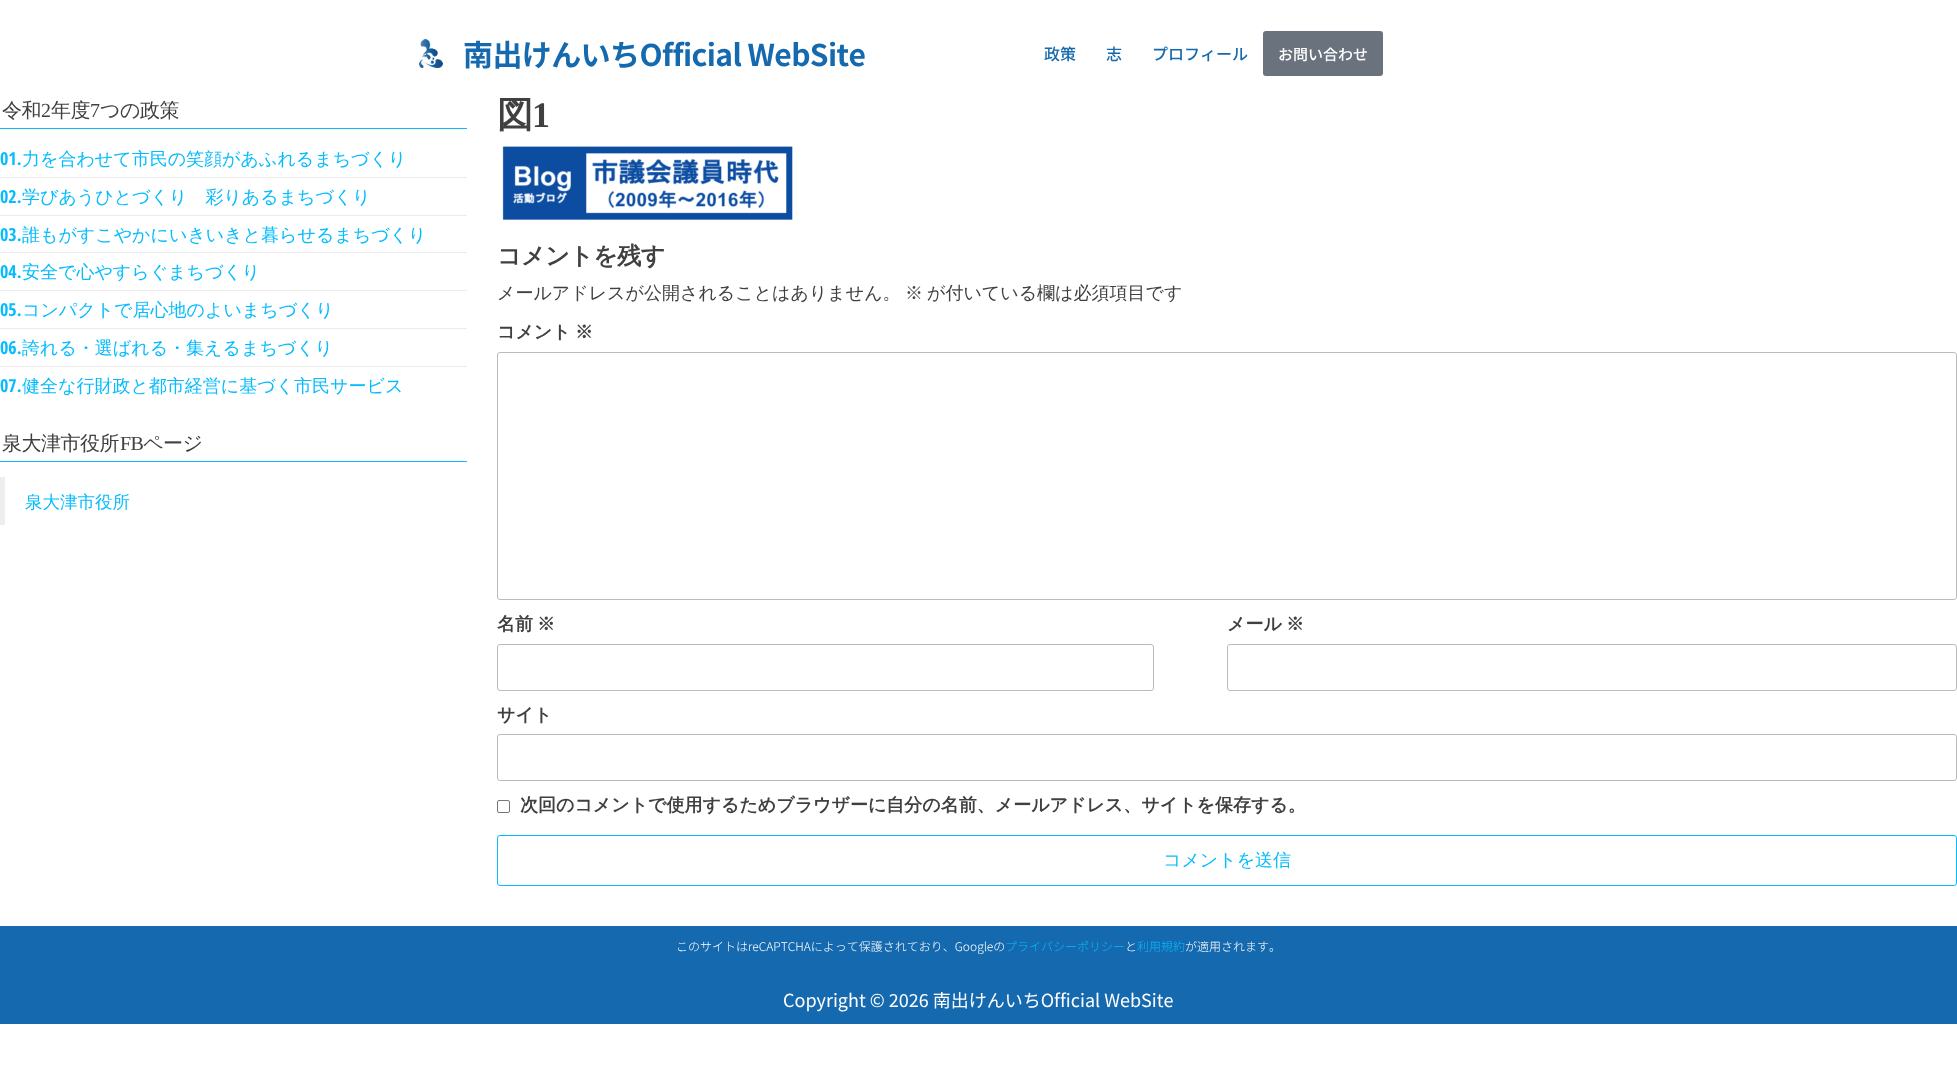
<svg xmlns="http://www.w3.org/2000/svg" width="1957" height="1092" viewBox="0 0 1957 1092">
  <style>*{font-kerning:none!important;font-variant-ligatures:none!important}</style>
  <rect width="100%" height="100%" fill="#fff"/>
  <image x="419" y="39" width="24" height="29" href="img/1.png"/>
  <rect x="1263" y="31" width="120" height="45" rx="3" fill="#69727d"/>
  <path d="M0 128h467v1H0z" fill="#07bcfd"/>
  <path d="M0 177h467v1H0z" fill="#ebebeb"/>
  <path d="M0 215h467v1H0z" fill="#ebebeb"/>
  <path d="M0 252h467v1H0z" fill="#ebebeb"/>
  <path d="M0 290h467v1H0z" fill="#ebebeb"/>
  <path d="M0 328h467v1H0z" fill="#ebebeb"/>
  <path d="M0 366h467v1H0z" fill="#ebebeb"/>
  <path d="M0 461h467v1H0z" fill="#07bcfd"/>
  <path d="M0 477h5v48H0z" fill="#eee"/>
  <image x="502" y="146" width="291" height="74" href="img/2.png"/>
  <rect x="497.5" y="352.5" width="1459" height="247" rx="2.5" fill="none" stroke="#bbb"/>
  <rect x="497.5" y="644.5" width="656" height="46" rx="2.5" fill="none" stroke="#bbb"/>
  <rect x="1227.5" y="644.5" width="729" height="46" rx="2.5" fill="none" stroke="#bbb"/>
  <rect x="497.5" y="734.5" width="1459" height="46" rx="2.5" fill="none" stroke="#bbb"/>
  <rect x="497.5" y="800.5" width="12" height="12" rx="1.5" fill="none" stroke="#767676"/>
  <rect x="497.5" y="835.5" width="1459" height="50" rx="2.5" fill="none" stroke="#07bcfd"/>
  <path d="M0 926h1957v98H0z" fill="#1569ae"/>
  <text x="463" y="66" font-family="Noto Sans JP" font-size="30" font-weight="bold" letter-spacing="-0.6" fill="#1569ae">南出けんいちOfficial WebSite</text>
  <g font-family="Noto Sans JP" font-size="16" font-weight="500" fill="#1569ae">
    <text x="1044" y="60">政策</text>
    <text x="1106" y="60">志</text>
    <text x="1152" y="60">プロフィール</text>
  </g>
  <text x="1278" y="60" font-family="Noto Sans JP" font-size="15" font-weight="500" fill="#fff">お問い合わせ</text>
  <text x="2" y="117" font-family="WenQuanYi Zen Hei" font-size="20" font-weight="500" letter-spacing="-0.5" fill="#404040">令和</text>
  <text x="41" y="117" font-family="Liberation Serif" font-size="20" letter-spacing="-0.5" fill="#404040">2</text>
  <text x="51" y="117" font-family="WenQuanYi Zen Hei" font-size="20" font-weight="500" letter-spacing="-0.5" fill="#404040">年度</text>
  <text x="90" y="117" font-family="Liberation Serif" font-size="20" letter-spacing="-0.5" fill="#404040">7</text>
  <text x="100" y="117" font-family="WenQuanYi Zen Hei" font-size="20" font-weight="500" letter-spacing="-0.5" fill="#404040">つの政策</text>
  <text x="0" y="165" font-family="Open Sans Condensed" font-size="18" font-weight="bold" fill="#07bcfd">01.</text>
  <text x="22" y="165" font-family="WenQuanYi Zen Hei" font-size="18" font-weight="500" fill="#07bcfd">力を合わせて市民の笑顔があふれるまちづくり</text>
  <text x="0" y="203" font-family="Open Sans Condensed" font-size="18" font-weight="bold" fill="#07bcfd">02.</text>
  <text x="22" y="203" font-family="WenQuanYi Zen Hei" font-size="18" font-weight="500" fill="#07bcfd">学びあうひとづくり　彩りあるまちづくり</text>
  <text x="0" y="241" font-family="Open Sans Condensed" font-size="18" font-weight="bold" fill="#07bcfd">03.</text>
  <text x="22" y="241" font-family="WenQuanYi Zen Hei" font-size="18" font-weight="500" fill="#07bcfd">誰もがすこやかにいきいきと暮らせるまちづくり</text>
  <text x="0" y="278" font-family="Open Sans Condensed" font-size="18" font-weight="bold" fill="#07bcfd">04.</text>
  <text x="22" y="278" font-family="WenQuanYi Zen Hei" font-size="18" font-weight="500" fill="#07bcfd">安全で心やすらぐまちづくり</text>
  <text x="0" y="316" font-family="Open Sans Condensed" font-size="18" font-weight="bold" fill="#07bcfd">05.</text>
  <text x="22" y="316" font-family="WenQuanYi Zen Hei" font-size="18" font-weight="500" fill="#07bcfd">コンパクトで居心地のよいまちづくり</text>
  <text x="0" y="354" font-family="Open Sans Condensed" font-size="18" font-weight="bold" fill="#07bcfd">06.</text>
  <text x="22" y="354" font-family="WenQuanYi Zen Hei" font-size="18" font-weight="500" fill="#07bcfd">誇れる・選ばれる・集えるまちづくり</text>
  <text x="0" y="392" font-family="Open Sans Condensed" font-size="18" font-weight="bold" fill="#07bcfd">07.</text>
  <text x="22" y="392" font-family="WenQuanYi Zen Hei" font-size="18" font-weight="500" fill="#07bcfd">健全な行財政と都市経営に基づく市民サービス</text>
  <text x="2" y="450" font-family="WenQuanYi Zen Hei" font-size="20" font-weight="500" letter-spacing="-0.5" fill="#404040">泉大津市役所</text>
  <text x="120" y="450" font-family="Liberation Serif" font-size="20" letter-spacing="-0.5" fill="#404040">FB</text>
  <text x="143" y="450" font-family="WenQuanYi Zen Hei" font-size="20" font-weight="500" letter-spacing="-0.5" fill="#404040">ページ</text>
  <text x="25" y="508" font-family="WenQuanYi Zen Hei" font-size="17.5" font-weight="500" fill="#07bcfd">泉大津市役所</text>
  <text x="497" y="127" font-family="WenQuanYi Zen Hei" font-size="36" font-weight="bold" letter-spacing="-1" fill="#404040">図</text>
  <text x="532" y="127" font-family="Liberation Serif" font-size="36" font-weight="bold" letter-spacing="-1" fill="#404040">1</text>
  <text x="497" y="264" font-family="WenQuanYi Zen Hei" font-size="24" font-weight="bold" letter-spacing="-0.5" fill="#404040">コメントを残す</text>
  <g font-family="WenQuanYi Zen Hei" font-size="18" font-weight="500" fill="#404040">
    <text x="497" y="299">メールアドレスが公開されることはありません。</text>
    <text x="905" y="299">※</text>
    <text x="927" y="299">が付いている欄は必須項目です</text>
  </g>
  <g font-family="WenQuanYi Zen Hei" font-size="18" font-weight="bold" fill="#404040">
    <text x="497" y="338">コメント</text>
    <text x="575" y="338">※</text>
    <text x="497" y="630">名前</text>
    <text x="537" y="630">※</text>
    <text x="1227" y="630">メール</text>
    <text x="1286" y="630">※</text>
    <text x="497" y="721">サイト</text>
    <text x="520" y="811">次回のコメントで使用するためブラウザーに自分の名前、メールアドレス、サイトを保存する。</text>
  </g>
  <text x="1163" y="866" font-family="WenQuanYi Zen Hei" font-size="18" font-weight="500" fill="#07bcfd">コメントを送信</text>
  <text x="676" y="951" font-family="Noto Sans JP" font-size="12" font-weight="300" fill="#fff">このサイトはreCAPTCHAによって保護されており、Googleの</text>
  <text x="1005" y="951" font-family="Noto Sans JP" font-size="12" font-weight="300" fill="#07bcfd">プライバシーポリシー</text>
  <text x="1125" y="951" font-family="Noto Sans JP" font-size="12" font-weight="300" fill="#fff">と</text>
  <text x="1137" y="951" font-family="Noto Sans JP" font-size="12" font-weight="300" fill="#07bcfd">利用規約</text>
  <text x="1185" y="951" font-family="Noto Sans JP" font-size="12" font-weight="300" fill="#fff">が適用されます。</text>
  <text x="783" y="1007" font-family="Noto Sans JP" font-size="18" fill="#fff">Copyright © 2026 南出けんいちOfficial WebSite</text>
</svg>
